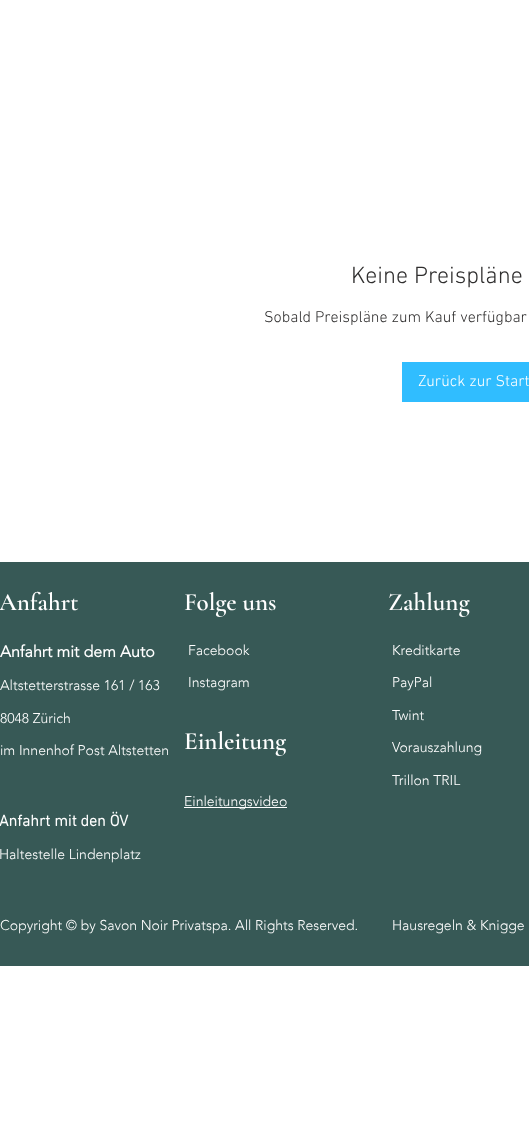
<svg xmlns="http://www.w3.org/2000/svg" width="529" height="1146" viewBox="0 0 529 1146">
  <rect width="100%" height="100%" fill="#fff"/>
  <path d="M402 362h127v40H402z" fill="#30bdff"/>
  <path d="M0 562h529v404H0z" fill="#375956"/>
  <path d="M184 807h103v1H184z" fill="#fff"/>
  <text x="351" y="283" font-family="'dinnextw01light'" font-size="24" font-weight="300" fill="#2f2e2e">Keine Preispläne</text>
  <text x="264" y="322" font-family="'dinnextw01light'" font-size="16" font-weight="300" fill="#2f2e2e">Sobald Preispläne zum Kauf verfügbar</text>
  <text x="418" y="386" font-family="'dinnextw01light'" font-size="16" font-weight="300" fill="#fff">Zurück zur Start</text>
  <g font-family="Cormorant Garamond" font-size="25" font-weight="600" fill="#fff">
    <text x="-1" y="610">Anfahrt</text>
    <text x="184" y="610">Folge uns</text>
    <text x="388" y="610">Zahlung</text>
  </g>
  <text x="0" y="657" font-family="'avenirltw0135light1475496'" font-size="16" font-weight="bold" fill="#fff">Anfahrt mit dem Auto</text>
  <g font-family="'avenirltw0135light1475496'" font-size="14" font-weight="300" fill="#fff">
    <text x="0" y="690">Altstetterstrasse 161 / 163</text>
    <text x="0" y="723">8048 Zürich</text>
    <text x="0" y="755">im Innenhof Post Altstetten</text>
    <text x="188" y="655">Facebook</text>
    <text x="188" y="687">Instagram</text>
    <text x="392" y="655">Kreditkarte</text>
    <text x="392" y="687">PayPal</text>
    <text x="392" y="720">Twint</text>
    <text x="392" y="752">Vorauszahlung</text>
    <text x="392" y="785">Trillon TRIL</text>
  </g>
  <text x="184" y="749" font-family="Cormorant Garamond" font-size="25" font-weight="600" fill="#fff">Einleitung</text>
  <text x="184" y="806" font-family="'avenirltw0135light1475496'" font-size="14" font-weight="300" fill="#fff">Einleitungsvideo</text>
  <text x="-1" y="826" font-family="'dinnextw01light'" font-size="16" font-weight="bold" fill="#fff">Anfahrt mit den ÖV</text>
  <g font-family="'avenirltw0135light1475496'" font-size="14" font-weight="300" fill="#fff">
    <text x="-1" y="859">Haltestelle Lindenplatz</text>
    <text x="0" y="930">Copyright © by Savon Noir Privatspa. All Rights Reserved.</text>
    <text x="392" y="930">Hausregeln &amp; Knigge</text>
  </g>
</svg>
